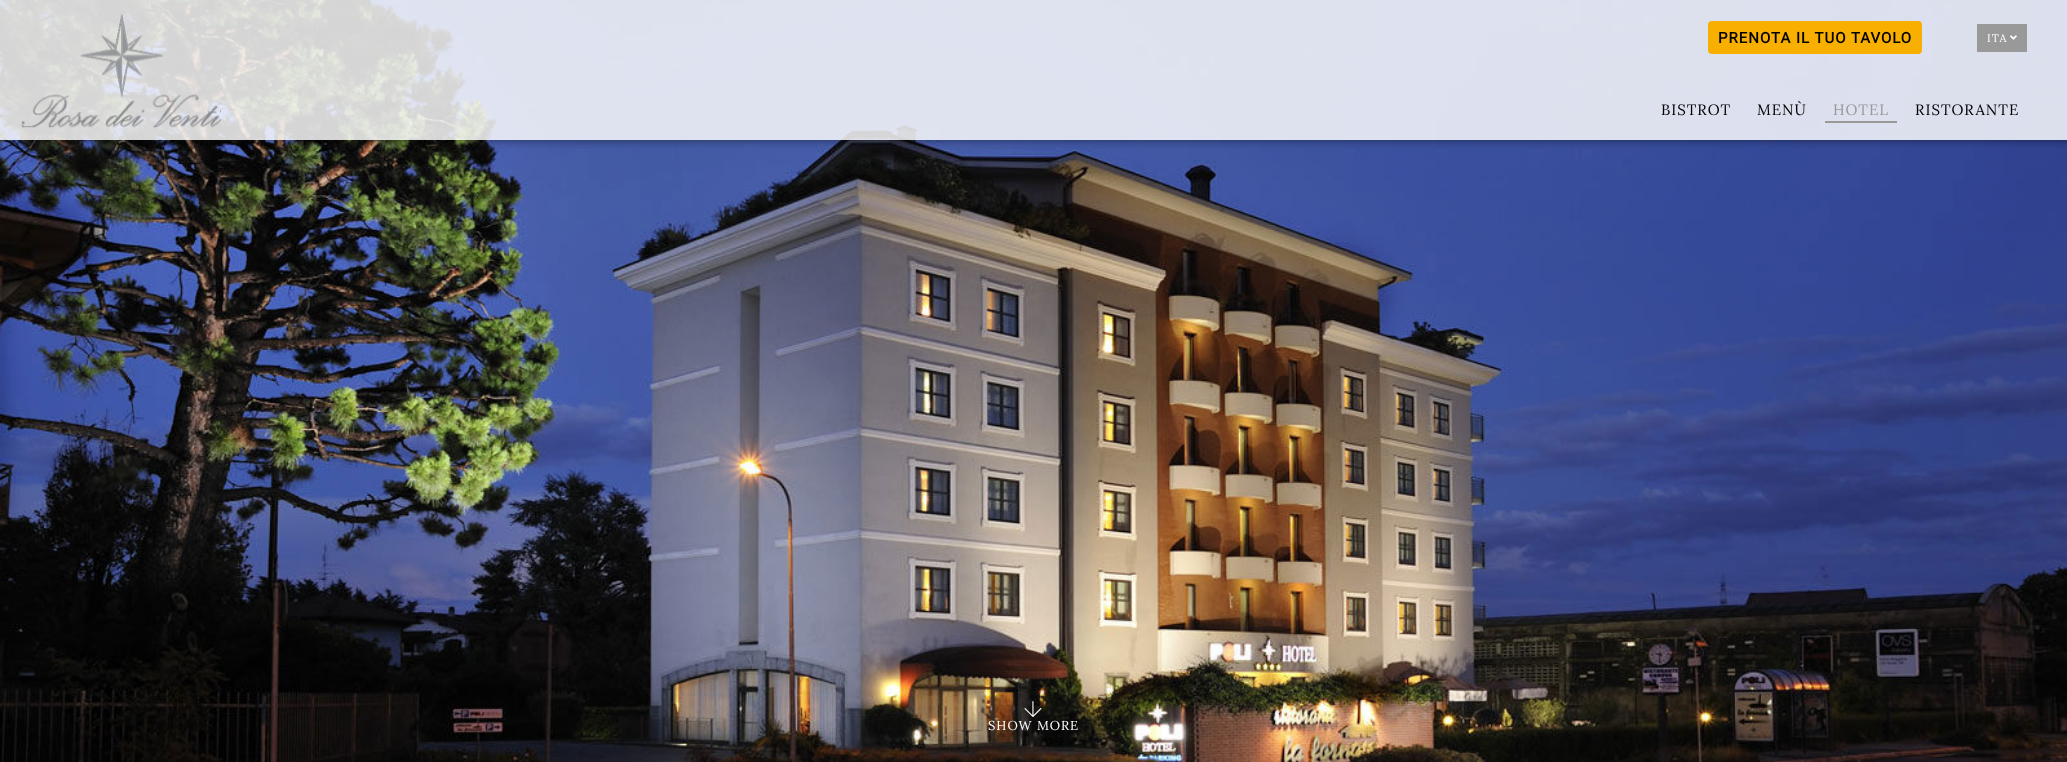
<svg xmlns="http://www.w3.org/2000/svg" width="2067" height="762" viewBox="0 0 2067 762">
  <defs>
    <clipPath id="clip1"><path d="M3 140h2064v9H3z"/></clipPath>
  </defs>
  <rect width="100%" height="100%" fill="#fff"/>
  <image x="0" y="0" width="2067" height="762" href="img/3.png"/>
  <g clip-path="url(#clip1)">
    <path d="M10 0h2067v140H10z" fill="#00000080" filter="blur(5px)"/>
  </g>
  <path d="M0 0h2067v140H0z" fill="#ffffffd4"/>
  <image x="21" y="14" width="200" height="114" href="img/1.png"/>
  <rect x="1708" y="21" width="214" height="33" rx="4" fill="#f8af00"/>
  <path d="M1977 24h50v28H1977z" fill="#999"/>
  <image x="2010" y="35" width="7" height="5" href="img/2.png"/>
  <path d="M1825 121h72v2H1825z" fill="#999"/>
  <image x="1024" y="701" width="18" height="16" href="img/4.png"/>
  <text x="1718" y="43" font-family="Roboto" font-size="15" font-weight="bold" letter-spacing="1" fill="#000">PRENOTA IL TUO TAVOLO</text>
  <text x="1987" y="42" font-family="Lora" font-size="11" letter-spacing="1" fill="#fff">ITA</text>
  <g font-family="Lora" font-size="15" letter-spacing="1" fill="#000">
    <text x="1661" y="115">BISTROT</text>
    <text x="1757" y="115">MENÙ</text>
  </g>
  <text x="1833" y="115" font-family="Lora" font-size="15" letter-spacing="1" fill="#999">HOTEL</text>
  <text x="1915" y="115" font-family="Lora" font-size="15" letter-spacing="1" fill="#000">RISTORANTE</text>
  <text x="988" y="730" font-family="Lora" font-size="13" letter-spacing="1" fill="#fff">SHOW MORE</text>
</svg>
